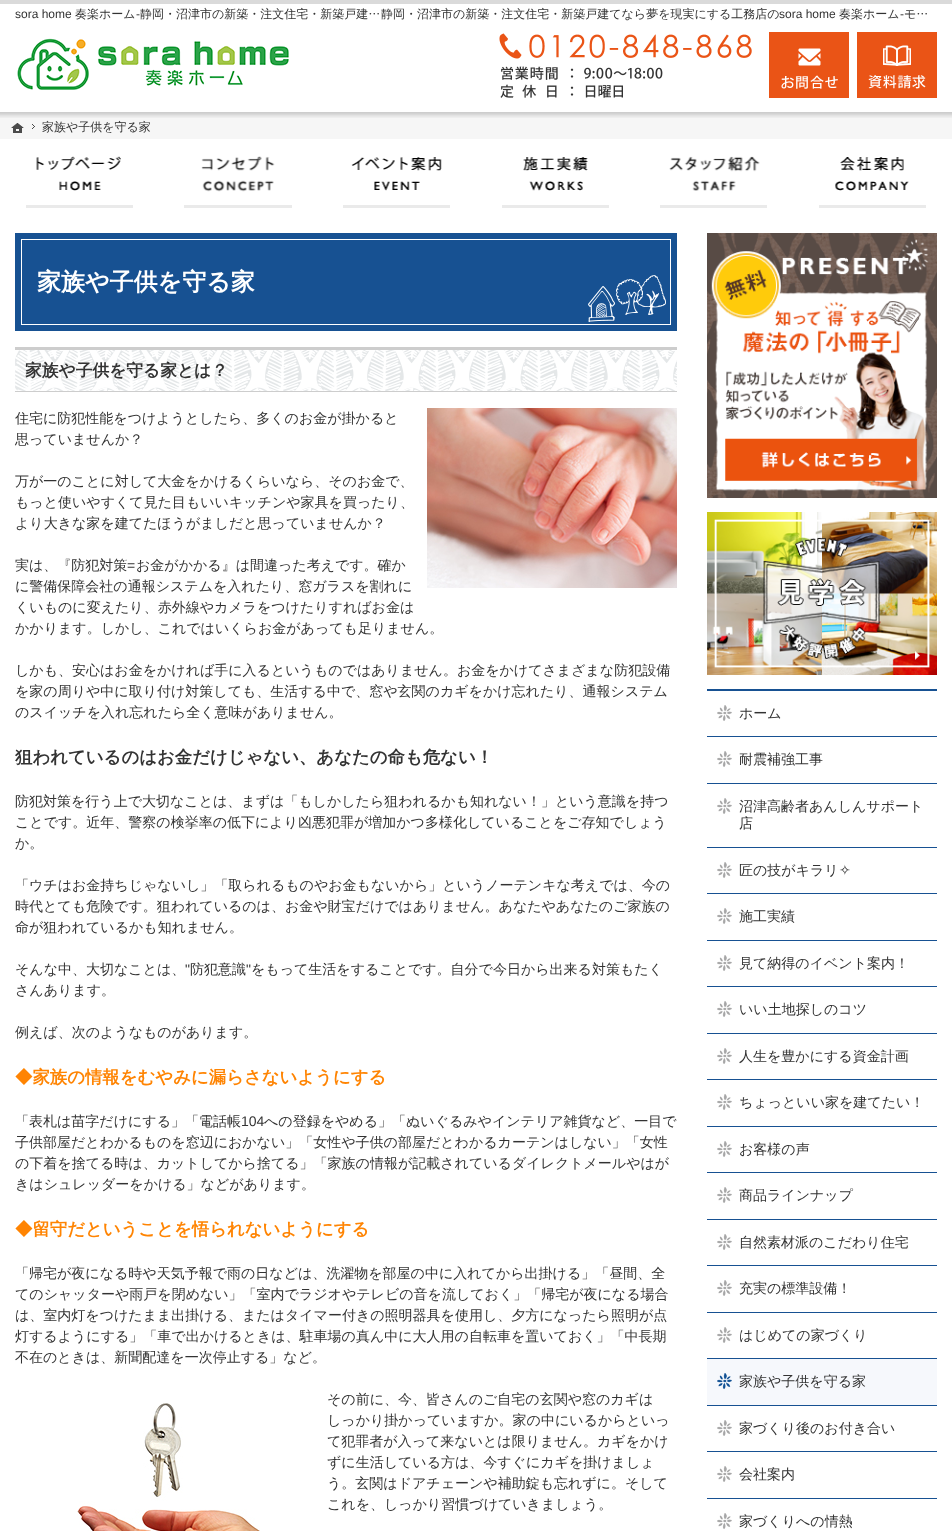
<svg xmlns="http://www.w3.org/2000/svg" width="952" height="1531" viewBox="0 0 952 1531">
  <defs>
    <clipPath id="clip1"><path d="M21 239h650v86H21z"/></clipPath>
  </defs>
  <rect width="100%" height="100%" fill="#fff"/>
  <path d="M0 0h952v4H0z" fill="#dadada"/>
  <image x="17" y="38" width="272" height="52" href="img/1.png"/>
  <path d="M15 233h662v98H15z" fill="#175192"/>
  <image x="588" y="275" width="78" height="47" href="img/2.png"/>
  <g clip-path="url(#clip1)">
    <path d="M-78 140H770V424H-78ZM20 238H670V324H20Z" fill="#fff" fill-rule="evenodd"/>
    <path d="M-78 140H770V424H-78ZM22 240H672V326H22Z" fill="#fff" fill-rule="evenodd"/>
  </g>
  <image x="15" y="350" width="662" height="41" href="img/3.png"/>
  <path d="M15 347h662v3H15z" fill="#cdcdcd"/>
  <path d="M15 391h662v1H15z" fill="#cdcdcd"/>
  <image x="427" y="408" width="250" height="180" href="img/4.png"/>
  <image x="77" y="1403" width="183" height="128" href="img/5.png"/>
  <image x="707" y="233" width="230" height="265" href="img/6.png"/>
  <image x="707" y="512" width="230" height="163" href="img/7.png"/>
  <path d="M707 689h230v2H707z" fill="#175192"/>
  <image x="717" y="705" width="15" height="16" href="img/8.png"/>
  <path d="M707 736h230v1H707z" fill="#175192"/>
  <image x="717" y="751" width="15" height="16" href="img/8.png"/>
  <path d="M707 783h230v1H707z" fill="#175192"/>
  <image x="717" y="798" width="15" height="16" href="img/8.png"/>
  <path d="M707 847h230v1H707z" fill="#175192"/>
  <image x="717" y="862" width="15" height="16" href="img/8.png"/>
  <path d="M707 893h230v1H707z" fill="#175192"/>
  <image x="717" y="908" width="15" height="16" href="img/8.png"/>
  <path d="M707 940h230v1H707z" fill="#175192"/>
  <image x="717" y="955" width="15" height="16" href="img/8.png"/>
  <path d="M707 986h230v1H707z" fill="#175192"/>
  <image x="717" y="1001" width="15" height="16" href="img/8.png"/>
  <path d="M707 1033h230v1H707z" fill="#175192"/>
  <image x="717" y="1048" width="15" height="16" href="img/8.png"/>
  <path d="M707 1079h230v1H707z" fill="#175192"/>
  <image x="717" y="1094" width="15" height="16" href="img/8.png"/>
  <path d="M707 1126h230v1H707z" fill="#175192"/>
  <image x="717" y="1141" width="15" height="16" href="img/8.png"/>
  <path d="M707 1172h230v1H707z" fill="#175192"/>
  <image x="717" y="1187" width="15" height="16" href="img/8.png"/>
  <path d="M707 1219h230v1H707z" fill="#175192"/>
  <image x="717" y="1234" width="15" height="16" href="img/8.png"/>
  <path d="M707 1265h230v1H707z" fill="#175192"/>
  <image x="717" y="1280" width="15" height="16" href="img/8.png"/>
  <path d="M707 1312h230v1H707z" fill="#175192"/>
  <image x="717" y="1327" width="15" height="16" href="img/8.png"/>
  <path d="M707 1358h230v1H707z" fill="#175192"/>
  <path d="M707 1359h230v46H707z" fill="#f6f8fc"/>
  <image x="717" y="1373" width="15" height="16" href="img/9.png"/>
  <path d="M707 1405h230v1H707z" fill="#175192"/>
  <image x="717" y="1420" width="15" height="16" href="img/8.png"/>
  <path d="M707 1451h230v1H707z" fill="#175192"/>
  <image x="717" y="1466" width="15" height="16" href="img/8.png"/>
  <path d="M707 1498h230v1H707z" fill="#175192"/>
  <image x="717" y="1513" width="15" height="16" href="img/8.png"/>
  <image x="499" y="33" width="253" height="65" href="img/10.png"/>
  <path d="M769 32h80v66H769z" fill="#ea5416"/>
  <image x="781" y="48" width="57" height="41" href="img/11.png"/>
  <path d="M857 32h80v66H857z" fill="#ea5416"/>
  <image x="868" y="45" width="58" height="44" href="img/12.png"/>
  <path d="M0 118h952v21H0z" fill="#f6f6f6"/>
  <image x="0" y="112" width="952" height="6" href="img/13.png"/>
  <image x="11" y="123" width="13" height="10" href="img/14.png"/>
  <image x="32" y="124" width="3" height="5" href="img/15.png"/>
  <image x="36" y="156" width="85" height="35" href="img/16.png"/>
  <path d="M26 205h107v3H26z" fill="#eaeaea"/>
  <image x="201" y="156" width="74" height="36" href="img/17.png"/>
  <path d="M184 205h108v3H184z" fill="#eaeaea"/>
  <image x="351" y="157" width="91" height="34" href="img/18.png"/>
  <path d="M343 205h107v3H343z" fill="#eaeaea"/>
  <image x="523" y="157" width="65" height="34" href="img/19.png"/>
  <path d="M502 205h107v3H502z" fill="#eaeaea"/>
  <image x="669" y="156" width="91" height="35" href="img/20.png"/>
  <path d="M660 205h107v3H660z" fill="#eaeaea"/>
  <image x="835" y="157" width="74" height="34" href="img/21.png"/>
  <path d="M819 205h107v3H819z" fill="#eaeaea"/>
  <text x="15" y="18" font-family="Liberation Sans" font-size="12" fill="#333">sora home</text>
  <text x="75" y="18" font-family="WenQuanYi Zen Hei" font-size="12" font-weight="500" fill="#333">奏楽ホーム</text>
  <text x="136" y="18" font-family="Liberation Sans" font-size="12" fill="#333">‐</text>
  <g font-family="WenQuanYi Zen Hei" font-size="12" font-weight="500" fill="#333">
    <text x="140" y="18">静岡・沼津市の新築・注文住宅・新築戸建…</text>
    <text x="381" y="18">静岡・沼津市の新築・注文住宅・新築戸建てなら夢を現実にする工務店の</text>
  </g>
  <text x="779" y="18" font-family="Liberation Sans" font-size="12" fill="#333">sora home</text>
  <text x="839" y="18" font-family="WenQuanYi Zen Hei" font-size="12" font-weight="500" fill="#333">奏楽ホーム</text>
  <text x="900" y="18" font-family="Liberation Sans" font-size="12" fill="#333">‐</text>
  <text x="904" y="18" font-family="WenQuanYi Zen Hei" font-size="12" font-weight="500" fill="#333">モ…</text>
  <text x="37" y="290" font-family="WenQuanYi Zen Hei" font-size="24" font-weight="bold" fill="#fff">家族や子供を守る家</text>
  <text x="25" y="376" font-family="WenQuanYi Zen Hei" font-size="16.75" font-weight="bold" fill="#333">家族や子供を守る家とは？</text>
  <g font-family="WenQuanYi Zen Hei" font-size="14" font-weight="500" fill="#333">
    <text x="15" y="423">住宅に防犯性能をつけようとしたら、多くのお金が掛かると</text>
    <text x="15" y="444">思っていませんか？</text>
    <text x="15" y="486">万が一のことに対して大金をかけるくらいなら、そのお金で、</text>
    <text x="15" y="507">もっと使いやすくて見た目もいいキッチンや家具を買ったり、</text>
    <text x="15" y="528">より大きな家を建てたほうがましだと思っていませんか？</text>
    <text x="15" y="570">実は、『防犯対策</text>
  </g>
  <text x="127" y="570" font-family="Liberation Sans" font-size="14" fill="#333">=</text>
  <g font-family="WenQuanYi Zen Hei" font-size="14" font-weight="500" fill="#333">
    <text x="136" y="570">お金がかかる』は間違った考えです。確か</text>
    <text x="15" y="591">に警備保障会社の通報システムを入れたり、窓ガラスを割れに</text>
    <text x="15" y="612">くいものに変えたり、赤外線やカメラをつけたりすればお金は</text>
    <text x="15" y="633">かかります。しかし、これではいくらお金があっても足りません。</text>
    <text x="15" y="675">しかも、安心はお金をかければ手に入るというものではありません。お金をかけてさまざまな防犯設備</text>
    <text x="15" y="696">を家の周りや中に取り付け対策しても、生活する中で、窓や玄関のカギをかけ忘れたり、通報システム</text>
    <text x="15" y="717">のスイッチを入れ忘れたら全く意味がありません。</text>
  </g>
  <text x="15" y="763" font-family="WenQuanYi Zen Hei" font-size="17.4" font-weight="bold" fill="#333">狙われているのはお金だけじゃない、あなたの命も危ない！</text>
  <g font-family="WenQuanYi Zen Hei" font-size="14" font-weight="500" fill="#333">
    <text x="15" y="806">防犯対策を行う上で大切なことは、まずは「もしかしたら狙われるかも知れない！」という意識を持つ</text>
    <text x="15" y="827">ことです。近年、警察の検挙率の低下により凶悪犯罪が増加かつ多様化していることをご存知でしょう</text>
    <text x="15" y="848">か。</text>
    <text x="15" y="890">「ウチはお金持ちじゃないし」「取られるものやお金もないから」というノーテンキな考えでは、今の</text>
    <text x="15" y="911">時代とても危険です。狙われているのは、お金や財宝だけではありません。あなたやあなたのご家族の</text>
    <text x="15" y="932">命が狙われているかも知れません。</text>
    <text x="15" y="974">そんな中、大切なことは、</text>
  </g>
  <text x="185" y="974" font-family="Liberation Sans" font-size="14" fill="#333">"</text>
  <text x="190" y="974" font-family="WenQuanYi Zen Hei" font-size="14" font-weight="500" fill="#333">防犯意識</text>
  <text x="246" y="974" font-family="Liberation Sans" font-size="14" fill="#333">"</text>
  <g font-family="WenQuanYi Zen Hei" font-size="14" font-weight="500" fill="#333">
    <text x="251" y="974">をもって生活をすることです。自分で今日から出来る対策もたく</text>
    <text x="15" y="995">さんあります。</text>
    <text x="15" y="1037">例えば、次のようなものがあります。</text>
  </g>
  <text x="15" y="1083" font-family="WenQuanYi Zen Hei" font-size="17.4" font-weight="bold" fill="#ff8402">◆家族の情報をむやみに漏らさないようにする</text>
  <text x="15" y="1126" font-family="WenQuanYi Zen Hei" font-size="14" font-weight="500" fill="#333">「表札は苗字だけにする」「電話帳</text>
  <text x="241" y="1126" font-family="Liberation Sans" font-size="14" fill="#333">104</text>
  <g font-family="WenQuanYi Zen Hei" font-size="14" font-weight="500" fill="#333">
    <text x="264" y="1126">への登録をやめる」「ぬいぐるみやインテリア雑貨など、一目で</text>
    <text x="15" y="1147">子供部屋だとわかるものを窓辺におかない」「女性や子供の部屋だとわかるカーテンはしない」「女性</text>
    <text x="15" y="1168">の下着を捨てる時は、カットしてから捨てる」「家族の情報が記載されているダイレクトメールやはが</text>
    <text x="15" y="1189">きはシュレッダーをかける」などがあります。</text>
  </g>
  <text x="15" y="1235" font-family="WenQuanYi Zen Hei" font-size="17.4" font-weight="bold" fill="#ff8402">◆留守だということを悟られないようにする</text>
  <g font-family="WenQuanYi Zen Hei" font-size="14" font-weight="500" fill="#333">
    <text x="15" y="1278">「帰宅が夜になる時や天気予報で雨の日などは、洗濯物を部屋の中に入れてから出掛ける」「昼間、全</text>
    <text x="15" y="1299">てのシャッターや雨戸を閉めない」「室内でラジオやテレビの音を流しておく」「帰宅が夜になる場合</text>
    <text x="15" y="1320">は、室内灯をつけたまま出掛ける、またはタイマー付きの照明器具を使用し、夕方になったら照明が点</text>
    <text x="15" y="1341">灯するようにする」「車で出かけるときは、駐車場の真ん中に大人用の自転車を置いておく」「中長期</text>
    <text x="15" y="1362">不在のときは、新聞配達を一次停止する」など。</text>
    <text x="327" y="1404">その前に、今、皆さんのご自宅の玄関や窓のカギは</text>
    <text x="327" y="1425">しっかり掛かっていますか。家の中にいるからといっ</text>
    <text x="327" y="1446">て犯罪者が入って来ないとは限りません。カギをかけ</text>
    <text x="327" y="1467">ずに生活している方は、今すぐにカギを掛けましょ</text>
    <text x="327" y="1488">う。玄関はドアチェーンや補助錠も忘れずに。そして</text>
    <text x="327" y="1509">これを、しっかり習慣づけていきましょう。</text>
    <text x="739" y="718">ホーム</text>
    <text x="739" y="764">耐震補強工事</text>
    <text x="739" y="811">沼津高齢者あんしんサポート</text>
    <text x="739" y="828">店</text>
    <text x="739" y="875">匠の技がキラリ</text>
  </g>
  <text x="839" y="875" font-family="DejaVu Sans" font-size="14" fill="#333">✧</text>
  <g font-family="WenQuanYi Zen Hei" font-size="14" font-weight="500" fill="#333">
    <text x="739" y="921">施工実績</text>
    <text x="739" y="968">見て納得のイベント案内！</text>
    <text x="739" y="1014">いい土地探しのコツ</text>
    <text x="739" y="1061">人生を豊かにする資金計画</text>
    <text x="739" y="1107">ちょっといい家を建てたい！</text>
    <text x="739" y="1154">お客様の声</text>
    <text x="739" y="1200">商品ラインナップ</text>
    <text x="739" y="1247">自然素材派のこだわり住宅</text>
    <text x="739" y="1293">充実の標準設備！</text>
    <text x="739" y="1340">はじめての家づくり</text>
    <text x="739" y="1386">家族や子供を守る家</text>
    <text x="739" y="1433">家づくり後のお付き合い</text>
    <text x="739" y="1479">会社案内</text>
    <text x="739" y="1526">家づくりへの情熱</text>
  </g>
  <text x="42" y="131" font-family="WenQuanYi Zen Hei" font-size="12" font-weight="500" fill="#333">家族や子供を守る家</text>
</svg>
